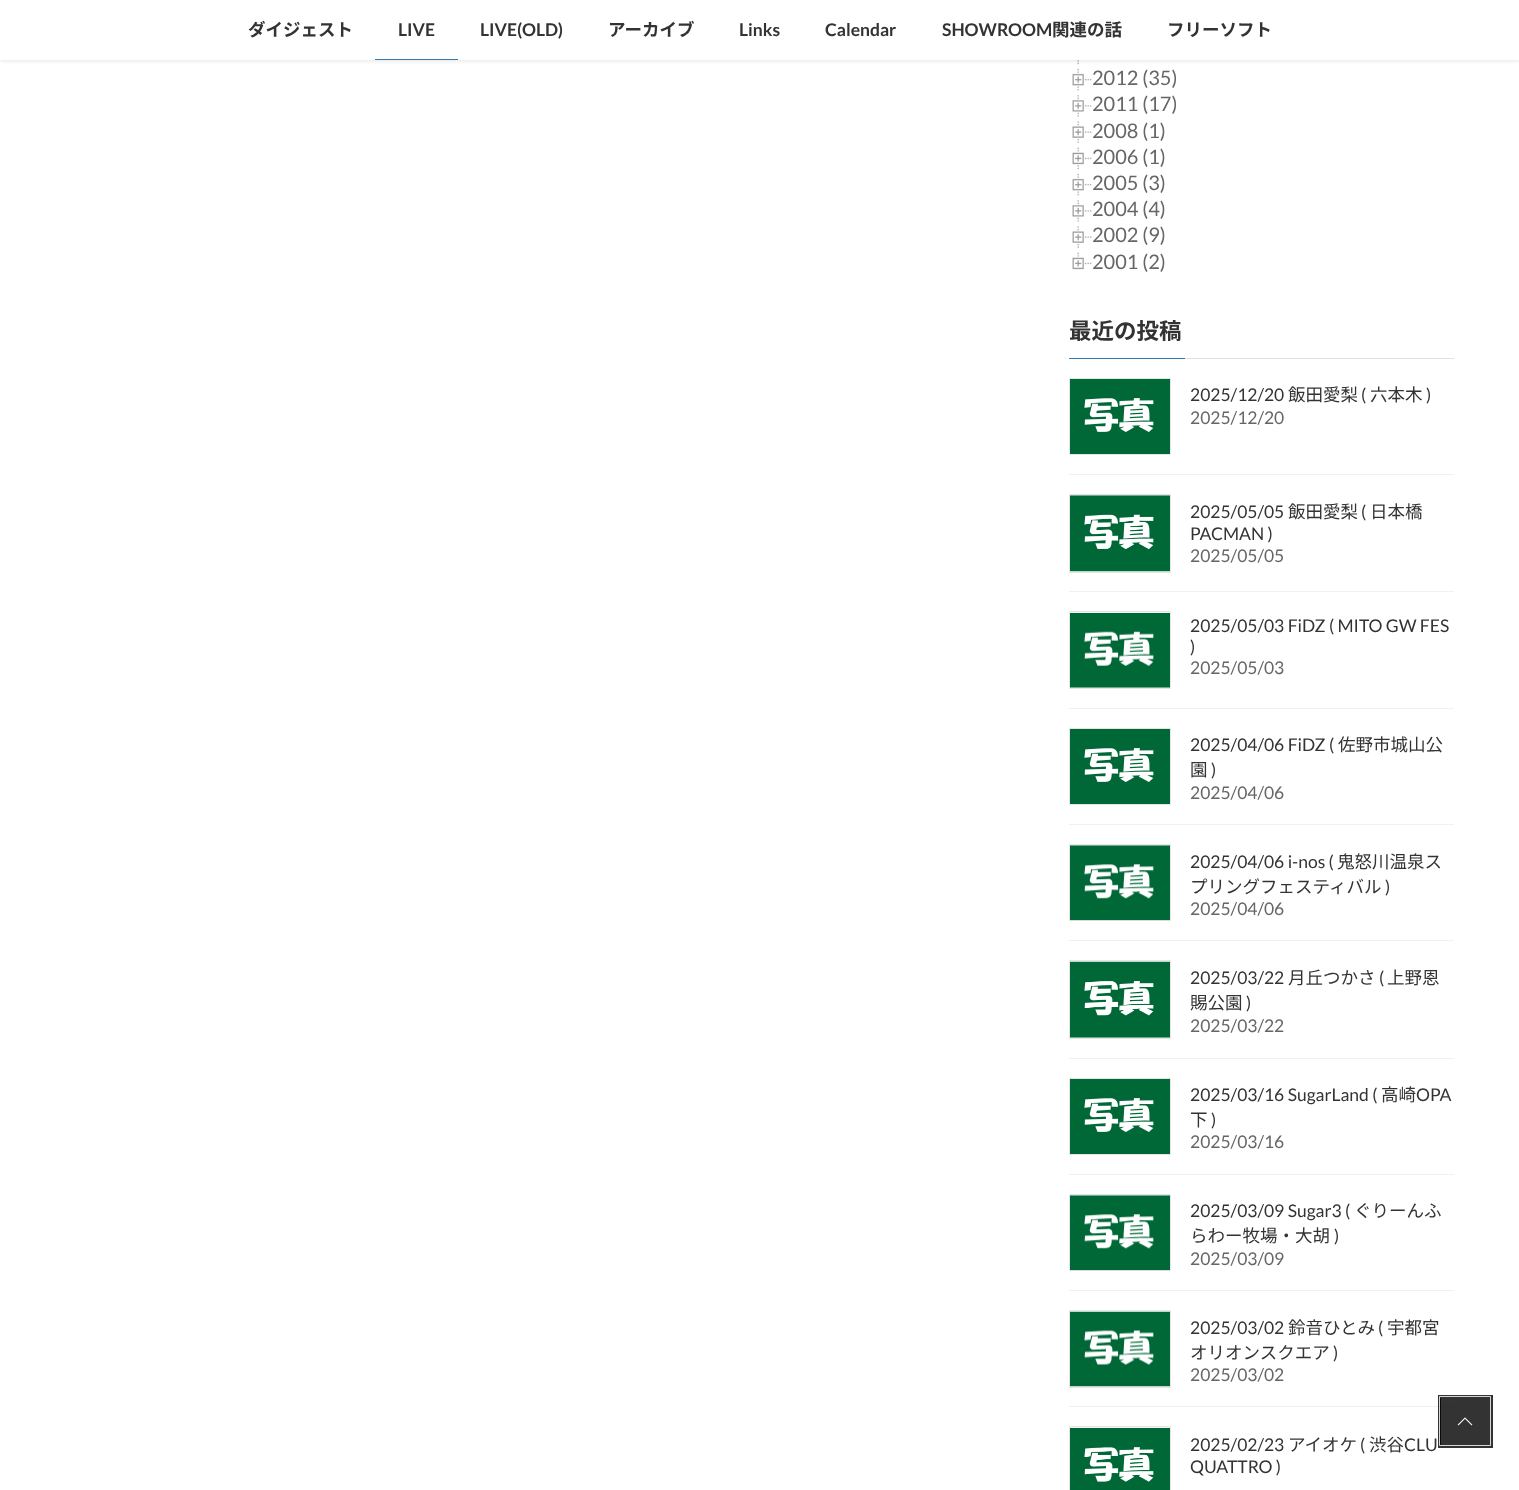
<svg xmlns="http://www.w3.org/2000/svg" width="1519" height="1490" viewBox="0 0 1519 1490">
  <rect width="100%" height="100%" fill="#fff"/>
  <image x="1077" y="60" width="2" height="5" href="img/1.png"/>
  <path d="M0 1h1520v60H0z" fill="#0000001a" filter="blur(2px)"/>
  <path d="M0 0h1519v60H0z" fill="#fff"/>
  <path d="M375 59h83v1H375z" fill="#337ab7"/>
  <image x="1072" y="69" width="20" height="22" href="img/2.png"/>
  <image x="1072" y="95" width="20" height="22" href="img/3.png"/>
  <image x="1072" y="121" width="20" height="22" href="img/4.png"/>
  <image x="1072" y="147" width="20" height="23" href="img/5.png"/>
  <image x="1072" y="174" width="20" height="22" href="img/2.png"/>
  <image x="1072" y="200" width="20" height="22" href="img/3.png"/>
  <image x="1072" y="226" width="20" height="22" href="img/4.png"/>
  <image x="1072" y="252" width="20" height="18" href="img/6.png"/>
  <path d="M1185 358h269v1H1185z" fill="#e0e0e0"/>
  <path d="M1069 358h116v1H1069z" fill="#337ab7"/>
  <path d="M1069 474h385v1H1069z" fill="#f0f0f0"/>
  <path d="M1069.5 378.5h101v76H1069.5z" fill="none" stroke="#e5e5e5"/>
  <image x="1070" y="379" width="100" height="75" href="img/7.png"/>
  <path d="M1069 591h385v1H1069z" fill="#f0f0f0"/>
  <path d="M1069.5 494.5h101v78H1069.5z" fill="none" stroke="#e5e5e5"/>
  <image x="1070" y="495" width="100" height="77" href="img/8.png"/>
  <path d="M1069 708h385v1H1069z" fill="#f0f0f0"/>
  <path d="M1069.5 611.5h101v77H1069.5z" fill="none" stroke="#e5e5e5"/>
  <image x="1070" y="612" width="100" height="76" href="img/9.png"/>
  <path d="M1069 824h385v1H1069z" fill="#f0f0f0"/>
  <path d="M1069.5 728.5h101v76H1069.5z" fill="none" stroke="#e5e5e5"/>
  <image x="1070" y="729" width="100" height="75" href="img/7.png"/>
  <path d="M1069 940h385v1H1069z" fill="#f0f0f0"/>
  <path d="M1069.5 844.5h101v76H1069.5z" fill="none" stroke="#e5e5e5"/>
  <image x="1070" y="845" width="100" height="76" href="img/10.png"/>
  <path d="M1069 1058h385v1H1069z" fill="#f0f0f0"/>
  <path d="M1069.5 960.5h101v78H1069.5z" fill="none" stroke="#e5e5e5"/>
  <image x="1070" y="961" width="100" height="77" href="img/11.png"/>
  <path d="M1069 1174h385v1H1069z" fill="#f0f0f0"/>
  <path d="M1069.5 1078.5h101v76H1069.5z" fill="none" stroke="#e5e5e5"/>
  <image x="1070" y="1079" width="100" height="75" href="img/7.png"/>
  <path d="M1069 1290h385v1H1069z" fill="#f0f0f0"/>
  <path d="M1069.5 1194.5h101v76H1069.5z" fill="none" stroke="#e5e5e5"/>
  <image x="1070" y="1195" width="100" height="76" href="img/10.png"/>
  <path d="M1069 1406h385v1H1069z" fill="#f0f0f0"/>
  <path d="M1069.5 1310.5h101v77H1069.5z" fill="none" stroke="#e5e5e5"/>
  <image x="1070" y="1311" width="100" height="76" href="img/12.png"/>
  <path d="M1069.5 1426.5h101v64H1069.5z" fill="none" stroke="#e5e5e5"/>
  <image x="1070" y="1427" width="100" height="63" href="img/13.png"/>
  <path d="M1439.5 1396.5h52v50H1439.5z" fill="none" stroke="#000000cc" stroke-width="3"/>
  <path d="M1439.5 1396.5h51v49H1439.5z" fill="none" stroke="#ffffffcc"/>
  <path d="M1440 1398h50v47H1440z" fill="#000000cc"/>
  <image x="1457" y="1417" width="16" height="9" href="img/14.png"/>
  <text x="248" y="36" font-family="Noto Sans JP" font-size="17.5" font-weight="bold" fill="#333">ダイジェスト</text>
  <g font-family="Lato" font-size="17.5" font-weight="bold" fill="#333">
    <text x="398" y="36">LIVE</text>
    <text x="480" y="36">LIVE(OLD)</text>
  </g>
  <text x="608" y="36" font-family="Noto Sans JP" font-size="17.5" font-weight="bold" fill="#333">アーカイブ</text>
  <g font-family="Lato" font-size="17.5" font-weight="bold" fill="#333">
    <text x="739" y="36">Links</text>
    <text x="825" y="36">Calendar</text>
    <text x="942" y="36">SHOWROOM</text>
  </g>
  <g font-family="Noto Sans JP" font-size="17.5" font-weight="bold" fill="#333">
    <text x="1052" y="36">関連の話</text>
    <text x="1167" y="36">フリーソフト</text>
  </g>
  <g font-family="Lato" font-size="20" fill="#666">
    <text x="1092" y="85">2012 (35)</text>
    <text x="1092" y="111">2011 (17)</text>
    <text x="1092" y="138">2008 (1)</text>
    <text x="1092" y="164">2006 (1)</text>
    <text x="1092" y="190">2005 (3)</text>
    <text x="1092" y="216">2004 (4)</text>
    <text x="1092" y="242">2002 (9)</text>
    <text x="1092" y="269">2001 (2)</text>
  </g>
  <text x="1069" y="339" font-family="Noto Sans JP" font-size="22.5" font-weight="bold" fill="#333">最近の投稿</text>
  <text x="1190" y="401" font-family="Lato" font-size="17.5" fill="#333">2025/12/20</text>
  <text x="1288" y="401" font-family="Noto Sans JP" font-size="17.5" fill="#333">飯田愛梨</text>
  <text x="1361" y="401" font-family="Lato" font-size="17.5" fill="#333">(</text>
  <text x="1370" y="401" font-family="Noto Sans JP" font-size="17.5" fill="#333">六本木</text>
  <text x="1426" y="401" font-family="Lato" font-size="17.5" fill="#333">)</text>
  <text x="1190" y="424" font-family="Lato" font-size="17.5" fill="#666">2025/12/20</text>
  <text x="1190" y="518" font-family="Lato" font-size="17.5" fill="#333">2025/05/05</text>
  <text x="1288" y="518" font-family="Noto Sans JP" font-size="17.5" fill="#333">飯田愛梨</text>
  <text x="1361" y="518" font-family="Lato" font-size="17.5" fill="#333">(</text>
  <text x="1370" y="518" font-family="Noto Sans JP" font-size="17.5" fill="#333">日本橋</text>
  <text x="1190" y="540" font-family="Lato" font-size="17.5" fill="#333">PACMAN )</text>
  <text x="1190" y="562" font-family="Lato" font-size="17.5" fill="#666">2025/05/05</text>
  <g font-family="Lato" font-size="17.5" fill="#333">
    <text x="1190" y="632">2025/05/03 FiDZ ( MITO GW FES</text>
    <text x="1190" y="653">)</text>
  </g>
  <text x="1190" y="674" font-family="Lato" font-size="17.5" fill="#666">2025/05/03</text>
  <text x="1190" y="751" font-family="Lato" font-size="17.5" fill="#333">2025/04/06 FiDZ (</text>
  <g font-family="Noto Sans JP" font-size="17.5" fill="#333">
    <text x="1338" y="751">佐野市城山公</text>
    <text x="1190" y="776">園</text>
  </g>
  <text x="1211" y="776" font-family="Lato" font-size="17.5" fill="#333">)</text>
  <text x="1190" y="799" font-family="Lato" font-size="17.5" fill="#666">2025/04/06</text>
  <text x="1190" y="868" font-family="Lato" font-size="17.5" fill="#333">2025/04/06 i-nos (</text>
  <g font-family="Noto Sans JP" font-size="17.5" fill="#333">
    <text x="1337" y="868">鬼怒川温泉ス</text>
    <text x="1190" y="893">プリングフェスティバル</text>
  </g>
  <text x="1385" y="893" font-family="Lato" font-size="17.5" fill="#333">)</text>
  <text x="1190" y="915" font-family="Lato" font-size="17.5" fill="#666">2025/04/06</text>
  <text x="1190" y="984" font-family="Lato" font-size="17.5" fill="#333">2025/03/22</text>
  <text x="1288" y="984" font-family="Noto Sans JP" font-size="17.5" fill="#333">月丘つかさ</text>
  <text x="1379" y="984" font-family="Lato" font-size="17.5" fill="#333">(</text>
  <g font-family="Noto Sans JP" font-size="17.5" fill="#333">
    <text x="1387" y="984">上野恩</text>
    <text x="1190" y="1009">賜公園</text>
  </g>
  <text x="1246" y="1009" font-family="Lato" font-size="17.5" fill="#333">)</text>
  <text x="1190" y="1032" font-family="Lato" font-size="17.5" fill="#666">2025/03/22</text>
  <text x="1190" y="1101" font-family="Lato" font-size="17.5" fill="#333">2025/03/16 SugarLand (</text>
  <text x="1381" y="1101" font-family="Noto Sans JP" font-size="17.5" fill="#333">高崎</text>
  <text x="1416" y="1101" font-family="Lato" font-size="17.5" fill="#333">OPA</text>
  <text x="1190" y="1126" font-family="Noto Sans JP" font-size="17.5" fill="#333">下</text>
  <text x="1211" y="1126" font-family="Lato" font-size="17.5" fill="#333">)</text>
  <text x="1190" y="1148" font-family="Lato" font-size="17.5" fill="#666">2025/03/16</text>
  <text x="1190" y="1217" font-family="Lato" font-size="17.5" fill="#333">2025/03/09 Sugar3 (</text>
  <g font-family="Noto Sans JP" font-size="17.5" fill="#333">
    <text x="1354" y="1217">ぐりーんふ</text>
    <text x="1190" y="1242">らわー牧場・大胡</text>
  </g>
  <text x="1334" y="1242" font-family="Lato" font-size="17.5" fill="#333">)</text>
  <text x="1190" y="1265" font-family="Lato" font-size="17.5" fill="#666">2025/03/09</text>
  <text x="1190" y="1334" font-family="Lato" font-size="17.5" fill="#333">2025/03/02</text>
  <text x="1288" y="1334" font-family="Noto Sans JP" font-size="17.5" fill="#333">鈴音ひとみ</text>
  <text x="1378" y="1334" font-family="Lato" font-size="17.5" fill="#333">(</text>
  <g font-family="Noto Sans JP" font-size="17.5" fill="#333">
    <text x="1387" y="1334">宇都宮</text>
    <text x="1190" y="1359">オリオンスクエア</text>
  </g>
  <text x="1333" y="1359" font-family="Lato" font-size="17.5" fill="#333">)</text>
  <text x="1190" y="1381" font-family="Lato" font-size="17.5" fill="#666">2025/03/02</text>
  <text x="1190" y="1451" font-family="Lato" font-size="17.5" fill="#333">2025/02/23</text>
  <text x="1288" y="1451" font-family="Noto Sans JP" font-size="17.5" fill="#333">アイオケ</text>
  <text x="1360" y="1451" font-family="Lato" font-size="17.5" fill="#333">(</text>
  <text x="1369" y="1451" font-family="Noto Sans JP" font-size="17.5" fill="#333">渋谷</text>
  <g font-family="Lato" font-size="17.5" fill="#333">
    <text x="1404" y="1451">CLU</text>
    <text x="1190" y="1473">QUATTRO )</text>
  </g>
</svg>
